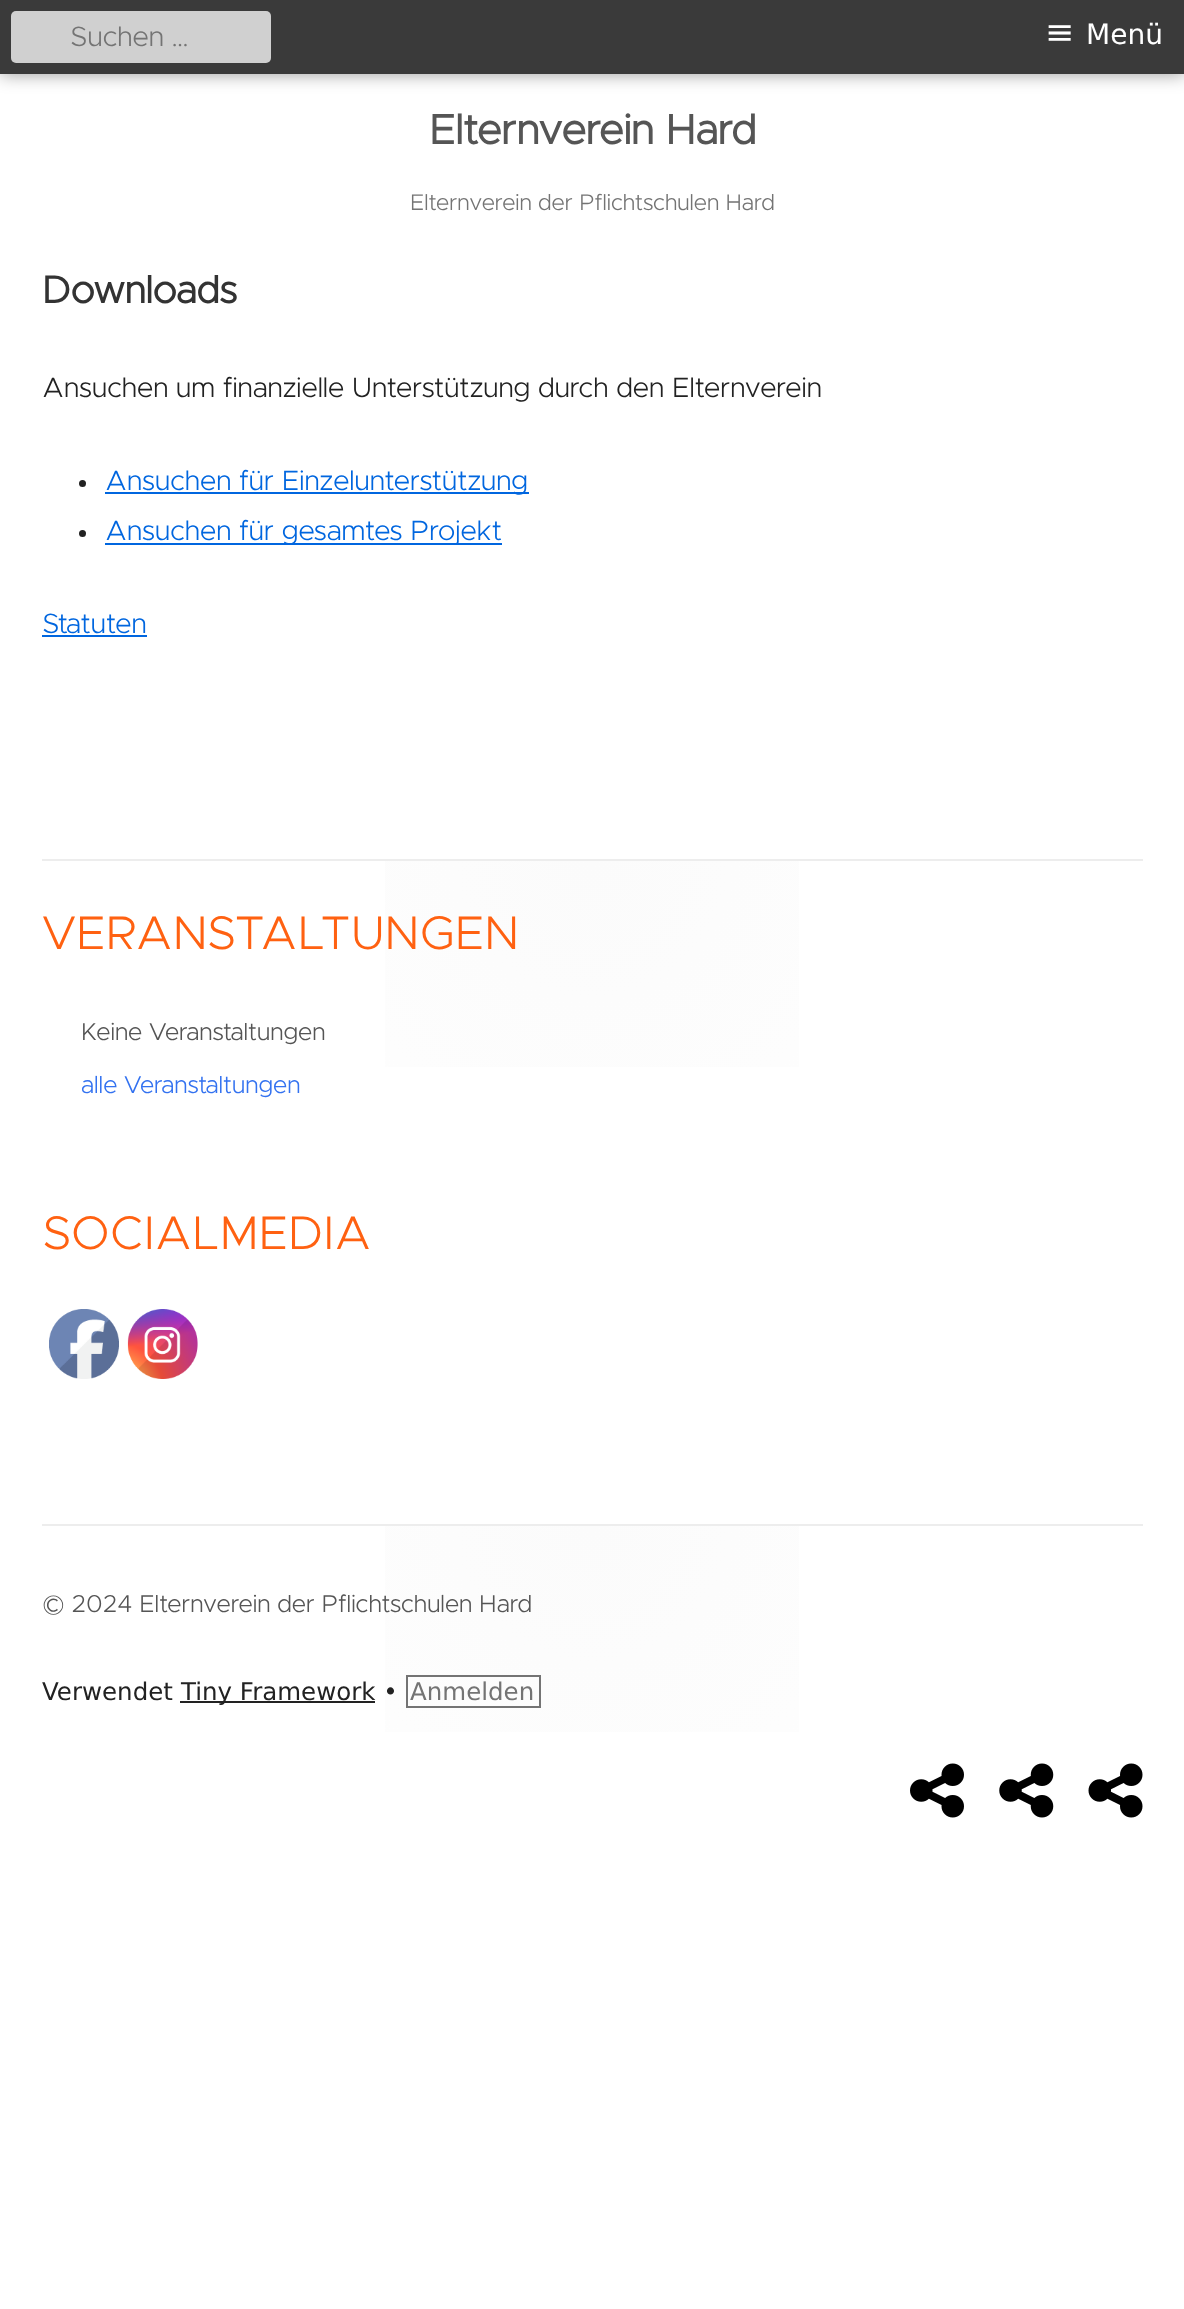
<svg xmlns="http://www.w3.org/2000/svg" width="1184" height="2309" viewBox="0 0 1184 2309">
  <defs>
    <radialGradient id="g1" gradientUnits="userSpaceOnUse" cx="592" cy="861" r="550"><stop offset="0" stop-color="#fbfbfb"/><stop offset="1" stop-color="#fff"/></radialGradient>
    <radialGradient id="g2" gradientUnits="userSpaceOnUse" cx="592" cy="1526" r="550"><stop offset="0" stop-color="#fbfbfb"/><stop offset="1" stop-color="#fff"/></radialGradient>
  </defs>
  <rect width="100%" height="100%" fill="#fff"/>
  <path d="M0 0h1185v74H0z" fill="#00000066" filter="blur(9px)"/>
  <path d="M0 0h1184v74H0z" fill="#3a3a3a"/>
  <rect x="11" y="11" width="260" height="52" rx="5" fill="#d0d0d0"/>
  <circle cx="82.5" cy="483.5" r="3.5" fill="#222"/>
  <path d="M105 492h424v2H105z" fill="#0066df"/>
  <circle cx="82.5" cy="533.5" r="3.5" fill="#222"/>
  <path d="M105 543h397v2H105z" fill="#0066df"/>
  <path d="M42 635h105v2H42z" fill="#0066df"/>
  <path d="M385 861h414v206H385z" fill="url(#g1)"/>
  <path d="M42 859h1101v2H42z" fill="#ededed"/>
  <image x="49" y="1309" width="70" height="70" href="img/1.png"/>
  <image x="127" y="1309" width="71" height="70" href="img/2.png"/>
  <path d="M385 1526h414v206H385z" fill="url(#g2)"/>
  <path d="M42 1524h1101v2H42z" fill="#ededed"/>
  <path d="M180 1701h195v2H180z" fill="#222"/>
  <path d="M407 1676h133v31H407z" fill="none" stroke="#747474" stroke-width="2"/>
  <image x="910" y="1763" width="54" height="55" href="img/3.png"/>
  <image x="999" y="1763" width="55" height="55" href="img/4.png"/>
  <image x="1088" y="1763" width="55" height="55" href="img/5.png"/>
  <text x="70" y="46" font-family="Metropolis" font-size="28" font-weight="300" fill="#747474">Suchen …</text>
  <text x="1045" y="44" font-family="DejaVu Sans" font-size="35" fill="#fff">≡</text>
  <text x="1086" y="44" font-family="DejaVu Sans" font-size="28" fill="#fff">Menü</text>
  <text x="429" y="144" font-family="Metropolis" font-size="42" font-weight="bold" fill="#555">Elternverein Hard</text>
  <text x="410" y="210" font-family="Metropolis" font-size="22.75" font-weight="300" fill="#747474">Elternverein der Pflichtschulen Hard</text>
  <text x="42" y="303" font-family="Metropolis" font-size="38.5" font-weight="bold" fill="#333">Downloads</text>
  <text x="42" y="397" font-family="Metropolis" font-size="28" font-weight="300" fill="#222">Ansuchen um finanzielle Unterstützung durch den Elternverein</text>
  <g font-family="Metropolis" font-size="28" font-weight="300" fill="#0066df">
    <text x="105" y="490">Ansuchen für Einzelunterstützung</text>
    <text x="105" y="540">Ansuchen für gesamtes Projekt</text>
    <text x="42" y="633">Statuten</text>
  </g>
  <text x="42" y="949" font-family="Metropolis" font-size="47.25" font-weight="300" fill="#ff6111">VERANSTALTUNGEN</text>
  <text x="81" y="1040" font-family="Metropolis" font-size="24.5" font-weight="300" fill="#555">Keine Veranstaltungen</text>
  <text x="81" y="1093" font-family="Metropolis" font-size="24.5" font-weight="300" fill="#3372f0">alle Veranstaltungen</text>
  <text x="42" y="1249" font-family="Metropolis" font-size="47.25" font-weight="300" fill="#ff6111">SOCIALMEDIA</text>
  <text x="42" y="1612" font-family="Metropolis" font-size="24.5" font-weight="300" fill="#555">© 2024 Elternverein der Pflichtschulen Hard</text>
  <g font-family="DejaVu Sans" font-size="24.5" fill="#222">
    <text x="42" y="1700">Verwendet</text>
    <text x="181" y="1700">Tiny Framework •</text>
  </g>
  <text x="410" y="1700" font-family="DejaVu Sans" font-size="24.5" fill="#747474">Anmelden</text>
</svg>
